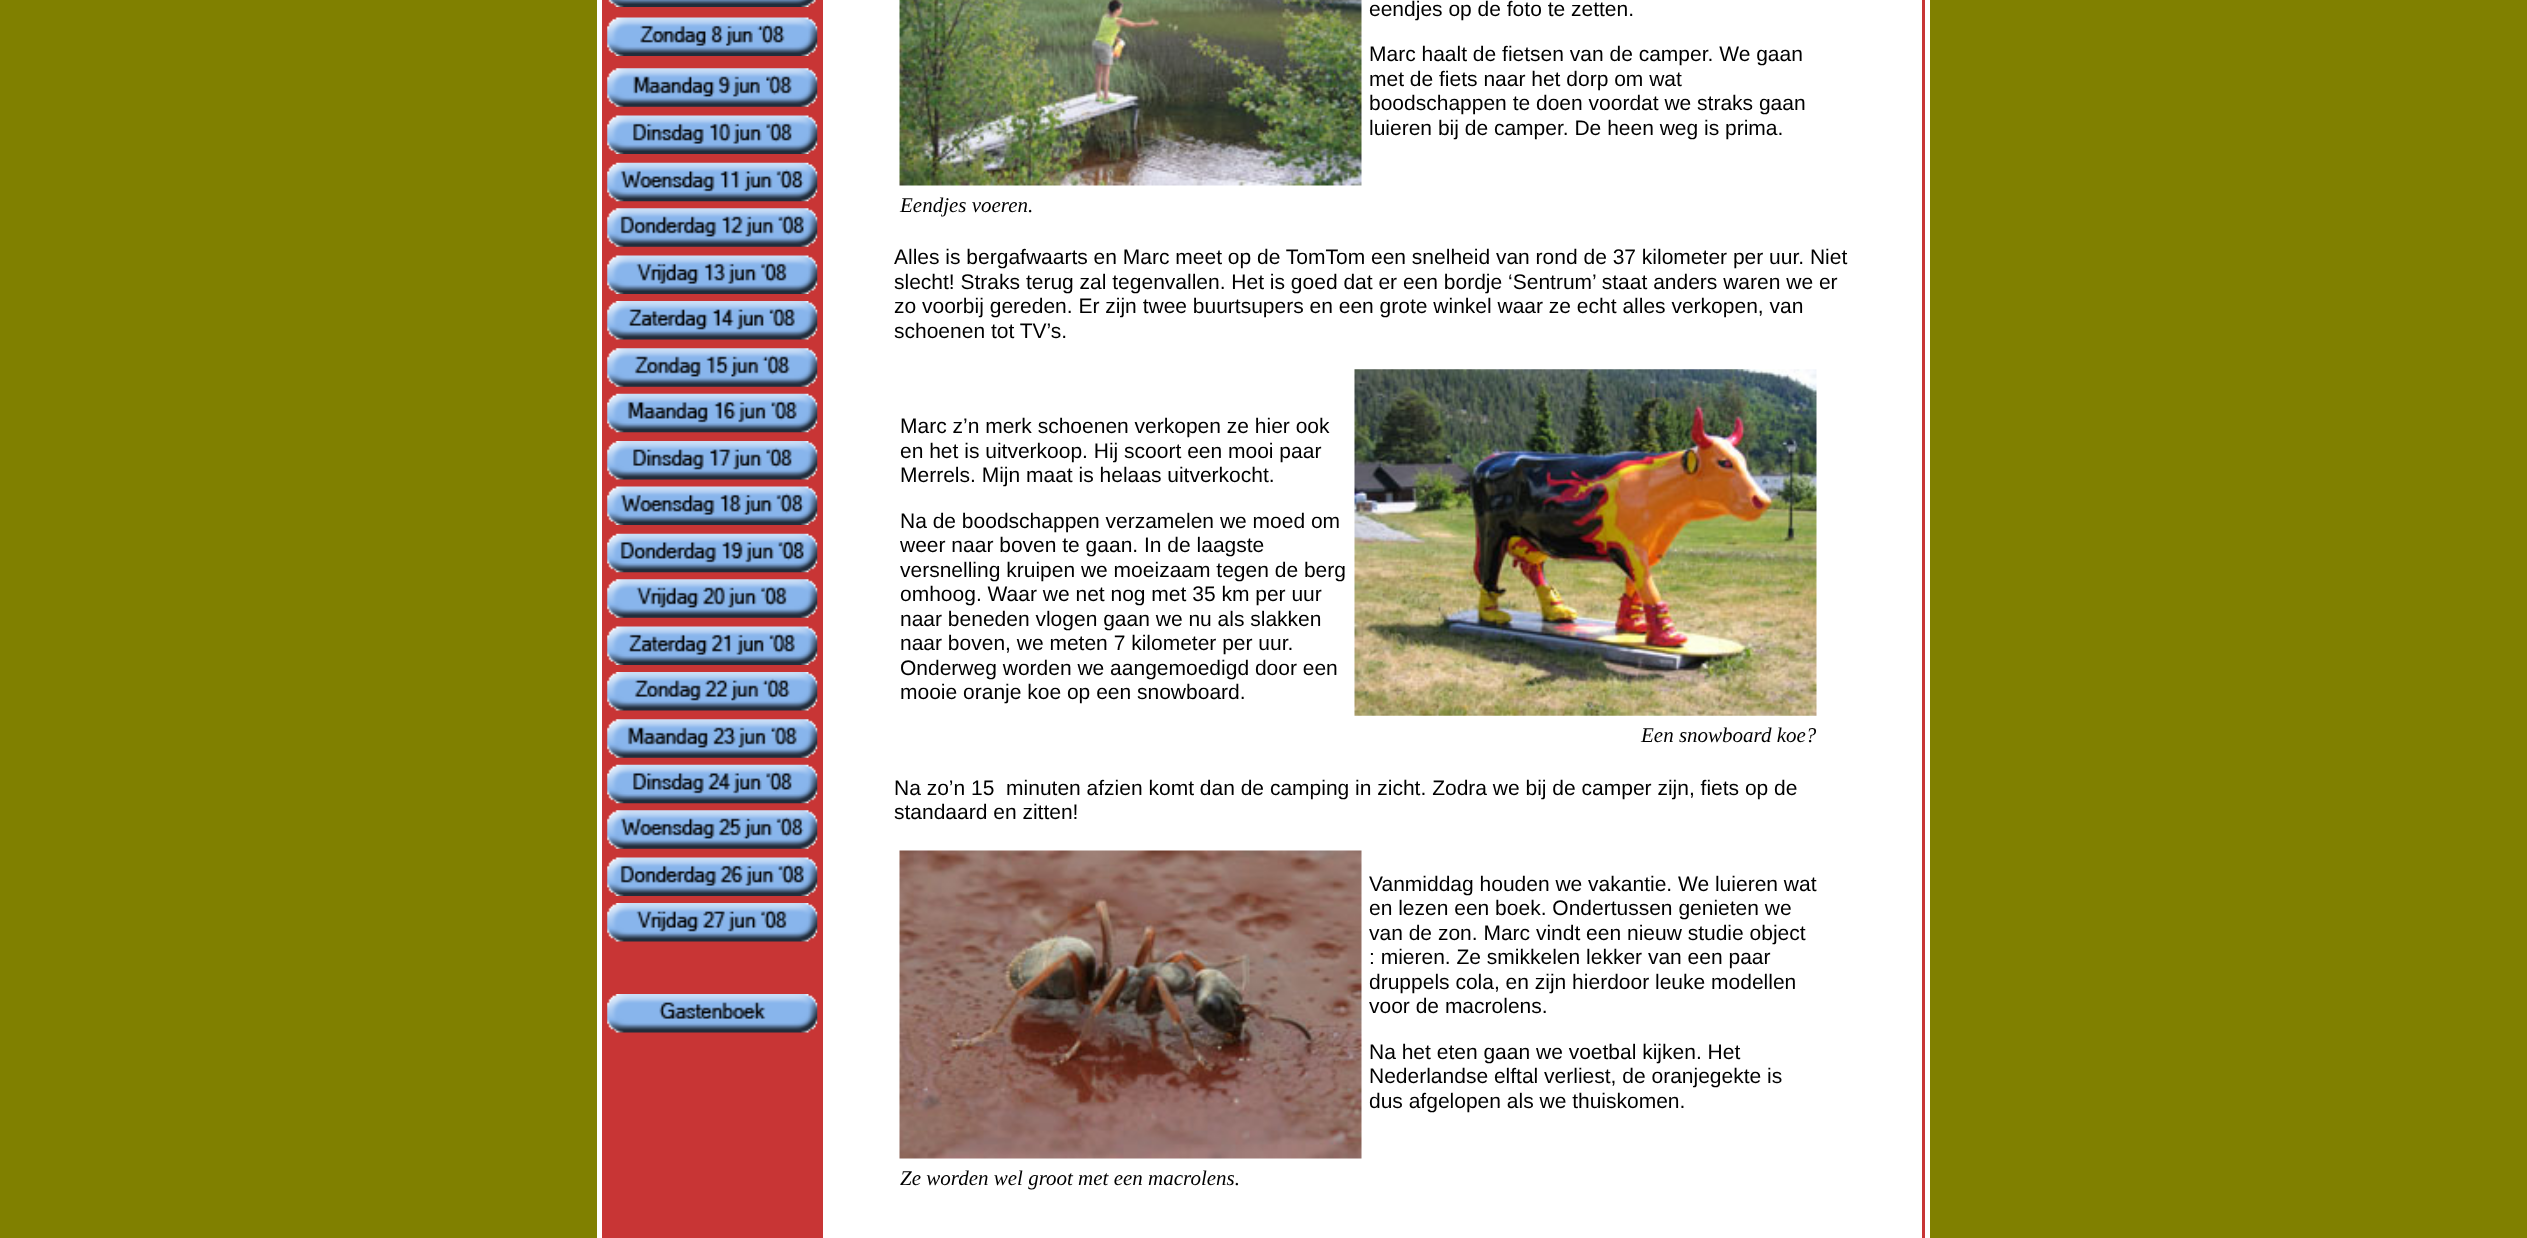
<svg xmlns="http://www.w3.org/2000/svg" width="2527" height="1238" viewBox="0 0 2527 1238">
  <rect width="100%" height="100%" fill="#808000"/>
  <path d="M599.5 -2.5h1328v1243H599.5z" fill="#c83535" stroke="#fff" stroke-width="5"/>
  <image x="608" y="0" width="208" height="7" href="img/1.png"/>
  <path d="M823 0h1099v1238H823z" fill="#fff"/>
  <image x="899" y="0" width="463" height="186" href="img/2.png"/>
  <image x="1354" y="369" width="463" height="347" href="img/3.png"/>
  <image x="899" y="850" width="463" height="309" href="img/4.png"/>
  <image x="607" y="17" width="211" height="39" href="img/5.png"/>
  <image x="607" y="68" width="211" height="39" href="img/6.png"/>
  <image x="607" y="115" width="211" height="39" href="img/7.png"/>
  <image x="607" y="162" width="211" height="40" href="img/8.png"/>
  <image x="607" y="208" width="211" height="39" href="img/9.png"/>
  <image x="607" y="255" width="211" height="39" href="img/10.png"/>
  <image x="607" y="301" width="211" height="39" href="img/11.png"/>
  <image x="607" y="348" width="211" height="39" href="img/12.png"/>
  <image x="607" y="393" width="211" height="40" href="img/13.png"/>
  <image x="607" y="441" width="211" height="39" href="img/14.png"/>
  <image x="607" y="486" width="211" height="39" href="img/15.png"/>
  <image x="607" y="533" width="211" height="40" href="img/16.png"/>
  <image x="607" y="579" width="211" height="39" href="img/17.png"/>
  <image x="607" y="626" width="211" height="39" href="img/18.png"/>
  <image x="607" y="672" width="211" height="39" href="img/19.png"/>
  <image x="607" y="719" width="211" height="39" href="img/20.png"/>
  <image x="607" y="764" width="211" height="40" href="img/21.png"/>
  <image x="607" y="810" width="211" height="39" href="img/22.png"/>
  <image x="607" y="857" width="211" height="39" href="img/23.png"/>
  <image x="607" y="903" width="211" height="39" href="img/24.png"/>
  <image x="607" y="994" width="211" height="39" href="img/25.png"/>
  <g font-family="Liberation Sans" font-size="21" fill="#000">
    <text x="1369" y="16">eendjes op de foto te zetten.</text>
    <text x="1369" y="61">Marc haalt de fietsen van de camper. We gaan</text>
    <text x="1369" y="86">met de fiets naar het dorp om wat</text>
    <text x="1369" y="110">boodschappen te doen voordat we straks gaan</text>
    <text x="1369" y="135">luieren bij de camper. De heen weg is prima.</text>
  </g>
  <text x="900" y="212" font-family="Liberation Serif" font-size="21" font-style="italic" fill="#000">Eendjes voeren.</text>
  <g font-family="Liberation Sans" font-size="21" fill="#000">
    <text x="894" y="264">Alles is bergafwaarts en Marc meet op de TomTom een snelheid van rond de 37 kilometer per uur. Niet</text>
    <text x="894" y="289">slecht! Straks terug zal tegenvallen. Het is goed dat er een bordje ‘Sentrum’ staat anders waren we er</text>
    <text x="894" y="313">zo voorbij gereden. Er zijn twee buurtsupers en een grote winkel waar ze echt alles verkopen, van</text>
    <text x="894" y="338">schoenen tot TV’s.</text>
    <text x="900" y="433">Marc z’n merk schoenen verkopen ze hier ook</text>
    <text x="900" y="458">en het is uitverkoop. Hij scoort een mooi paar</text>
    <text x="900" y="482">Merrels. Mijn maat is helaas uitverkocht.</text>
    <text x="900" y="528">Na de boodschappen verzamelen we moed om</text>
    <text x="900" y="552">weer naar boven te gaan. In de laagste</text>
    <text x="900" y="577">versnelling kruipen we moeizaam tegen de berg</text>
    <text x="900" y="601">omhoog. Waar we net nog met 35 km per uur</text>
    <text x="900" y="626">naar beneden vlogen gaan we nu als slakken</text>
    <text x="900" y="650">naar boven, we meten 7 kilometer per uur.</text>
    <text x="900" y="675">Onderweg worden we aangemoedigd door een</text>
    <text x="900" y="699">mooie oranje koe op een snowboard.</text>
  </g>
  <text x="1641" y="742" font-family="Liberation Serif" font-size="21" font-style="italic" fill="#000">Een snowboard koe?</text>
  <g font-family="Liberation Sans" font-size="21" fill="#000">
    <text x="894" y="795" xml:space="preserve">Na zo’n 15  minuten afzien komt dan de camping in zicht. Zodra we bij de camper zijn, fiets op de</text>
    <text x="894" y="819">standaard en zitten!</text>
    <text x="1369" y="891">Vanmiddag houden we vakantie. We luieren wat</text>
    <text x="1369" y="915">en lezen een boek. Ondertussen genieten we</text>
    <text x="1369" y="940">van de zon. Marc vindt een nieuw studie object</text>
    <text x="1369" y="964">: mieren. Ze smikkelen lekker van een paar</text>
    <text x="1369" y="989">druppels cola, en zijn hierdoor leuke modellen</text>
    <text x="1369" y="1013">voor de macrolens.</text>
    <text x="1369" y="1059">Na het eten gaan we voetbal kijken. Het</text>
    <text x="1369" y="1083">Nederlandse elftal verliest, de oranjegekte is</text>
    <text x="1369" y="1108">dus afgelopen als we thuiskomen.</text>
  </g>
  <text x="900" y="1185" font-family="Liberation Serif" font-size="21" font-style="italic" fill="#000">Ze worden wel groot met een macrolens.</text>
</svg>
